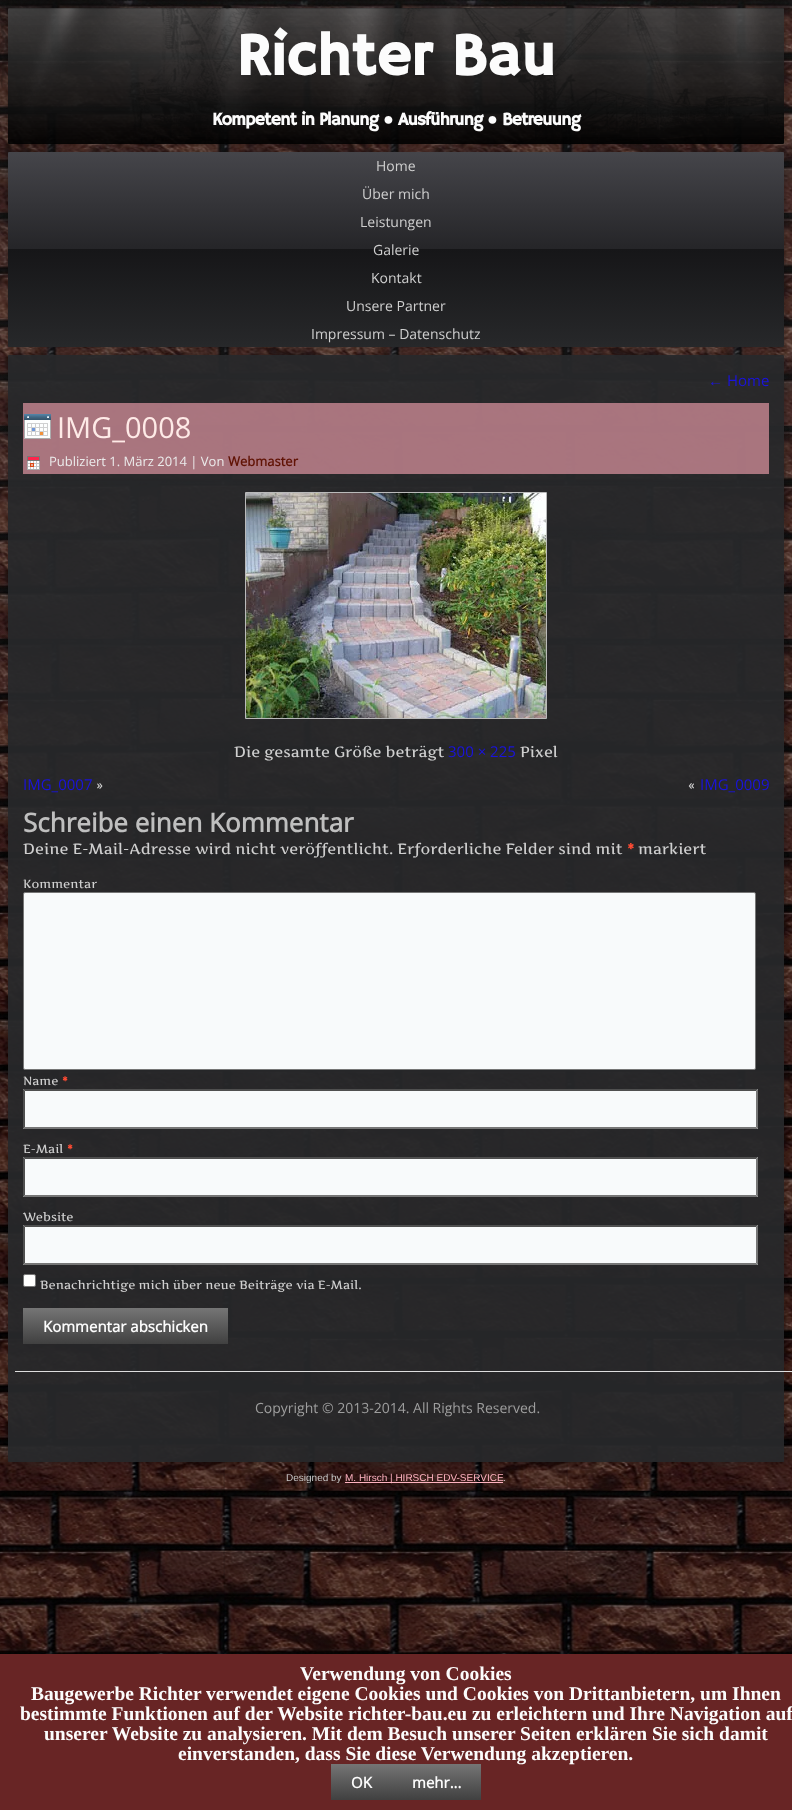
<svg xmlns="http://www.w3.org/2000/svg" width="792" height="1810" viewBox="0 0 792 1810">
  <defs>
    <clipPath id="clip1"><path d="M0 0H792V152H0ZM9 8H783C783.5 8 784 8.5 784 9V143C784 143.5 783.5 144 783 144H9C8.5 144 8 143.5 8 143V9C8 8.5 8.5 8 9 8Z" clip-rule="evenodd"/></clipPath>
    <linearGradient id="g1" gradientUnits="userSpaceOnUse" x1="396" y1="152" x2="396" y2="347"><stop offset="0" stop-color="#45454a"/><stop offset="0.5" stop-color="#252528"/><stop offset="0.5" stop-color="#161618"/><stop offset="1" stop-color="#27282a"/></linearGradient>
    <clipPath id="clip2"><path d="M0 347H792V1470H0ZM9 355H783C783.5 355 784 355.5 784 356V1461C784 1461.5 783.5 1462 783 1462H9C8.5 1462 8 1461.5 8 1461V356C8 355.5 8.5 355 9 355Z" clip-rule="evenodd"/></clipPath>
    <linearGradient id="g2" gradientUnits="userSpaceOnUse" x1="126" y1="1308" x2="126" y2="1344"><stop offset="0" stop-color="#757575"/><stop offset="1" stop-color="#404040"/></linearGradient>
    <linearGradient id="g3" gradientUnits="userSpaceOnUse" x1="362" y1="1764" x2="362" y2="1800"><stop offset="0" stop-color="#757575"/><stop offset="1" stop-color="#404040"/></linearGradient>
    <linearGradient id="g4" gradientUnits="userSpaceOnUse" x1="437" y1="1764" x2="437" y2="1800"><stop offset="0" stop-color="#757575"/><stop offset="1" stop-color="#404040"/></linearGradient>
  </defs>
  <rect width="100%" height="100%" fill="#fff"/>
  <image x="0" y="0" width="792" height="1654" href="img/1.png"/>
  <g clip-path="url(#clip1)">
    <rect x="6" y="6" width="780" height="140" rx="3" fill="#00000021" filter="blur(1.5px)"/>
  </g>
  <image x="8" y="8" width="776" height="136" href="img/2.png"/>
  <rect x="6" y="150" width="780" height="199" rx="3" fill="#00000026" filter="blur(1.5px)"/>
  <rect x="8" y="152" width="776" height="195" rx="1" fill="url(#g1)"/>
  <g clip-path="url(#clip2)">
    <rect x="6" y="353" width="780" height="1111" rx="3" fill="#00000024" filter="blur(1.5px)"/>
  </g>
  <rect x="8" y="355" width="776" height="1107" rx="1" fill="#27282af0"/>
  <path d="M23 403h746v71H23z" fill="#ffa8b899"/>
  <image x="24" y="414" width="27" height="25" href="img/3.png"/>
  <image x="27" y="456" width="13" height="14" href="img/4.png"/>
  <path d="M245.5 492.5h301v226H245.5z" fill="none" stroke="#bababa"/>
  <image x="246" y="493" width="300" height="225" href="img/5.png"/>
  <rect x="23.5" y="892.5" width="732" height="177" rx="1.5" fill="#f8fafb" stroke="#767676"/>
  <path d="M23 1089h735v40H23z" fill="#f8fafb"/>
  <path d="M23 1089H758L756 1091H25Z" fill="#4f4f4f"/>
  <path d="M758 1089V1129L756 1127V1091Z" fill="#767676"/>
  <path d="M758 1129H23L25 1127H756Z" fill="#767676"/>
  <path d="M23 1129V1089L25 1091V1127Z" fill="#4f4f4f"/>
  <path d="M23 1157h735v40H23z" fill="#f8fafb"/>
  <path d="M23 1157H758L756 1159H25Z" fill="#4f4f4f"/>
  <path d="M758 1157V1197L756 1195V1159Z" fill="#767676"/>
  <path d="M758 1197H23L25 1195H756Z" fill="#767676"/>
  <path d="M23 1197V1157L25 1159V1195Z" fill="#4f4f4f"/>
  <path d="M23 1225h735v40H23z" fill="#f8fafb"/>
  <path d="M23 1225H758L756 1227H25Z" fill="#4f4f4f"/>
  <path d="M758 1225V1265L756 1263V1227Z" fill="#767676"/>
  <path d="M758 1265H23L25 1263H756Z" fill="#767676"/>
  <path d="M23 1265V1225L25 1227V1263Z" fill="#4f4f4f"/>
  <rect x="23.5" y="1274.5" width="12" height="12" rx="1.5" fill="#fff" stroke="#767676"/>
  <path d="M23 1308h205v36H23z" fill="url(#g2)"/>
  <path d="M15 1371h777v1H15z" fill="#dedede"/>
  <path d="M345 1482h158v1H345z" fill="#ffb3c1"/>
  <path d="M0 1654h792v156H0z" fill="#682525"/>
  <text x="236" y="75" font-family="Hammersmith One" font-size="60" font-weight="bold" fill="#fcfcfc">Richter Bau</text>
  <text x="212" y="125" font-family="Hammersmith One" font-size="18" font-weight="bold" letter-spacing="-1" fill="#fcfcfc">Kompetent in Planung</text>
  <text x="383" y="125" font-family="Liberation Sans" font-size="18" font-weight="bold" letter-spacing="-1" fill="#fcfcfc">●</text>
  <text x="398" y="125" font-family="Hammersmith One" font-size="18" font-weight="bold" letter-spacing="-1" fill="#fcfcfc">Ausführung</text>
  <text x="487" y="125" font-family="Liberation Sans" font-size="18" font-weight="bold" letter-spacing="-1" fill="#fcfcfc">●</text>
  <text x="502" y="125" font-family="Hammersmith One" font-size="18" font-weight="bold" letter-spacing="-1" fill="#fcfcfc">Betreuung</text>
  <g font-family="Open Sans" font-size="14" fill="#cfcfcf">
    <text x="376" y="171">Home</text>
    <text x="362" y="199">Über mich</text>
    <text x="360" y="227">Leistungen</text>
    <text x="373" y="255">Galerie</text>
    <text x="371" y="283">Kontakt</text>
    <text x="346" y="311">Unsere Partner</text>
    <text x="311" y="339">Impressum – Datenschutz</text>
  </g>
  <text x="708" y="386" font-family="Liberation Sans" font-size="15" fill="#1a13dd">←</text>
  <text x="727" y="386" font-family="Open Sans" font-size="15" fill="#1a13dd">Home</text>
  <text x="57" y="438" font-family="Open Sans" font-size="29" fill="#feeae7">IMG_0008</text>
  <text x="49" y="466" font-family="Open Sans" font-size="13" fill="#ebebeb">Publiziert 1. März 2014 | Von</text>
  <text x="228" y="466" font-family="Open Sans" font-size="13" font-weight="bold" fill="#611305">Webmaster</text>
  <text x="234" y="757" font-family="Artifika" font-size="15" fill="#cfcfcf">Die gesamte Größe beträgt</text>
  <text x="448" y="757" font-family="Open Sans" font-size="15" fill="#1a13dd">300 × 225</text>
  <text x="520" y="757" font-family="Artifika" font-size="15" fill="#cfcfcf">Pixel</text>
  <text x="23" y="790" font-family="Open Sans" font-size="15" fill="#1a13dd">IMG_0007</text>
  <g font-family="Artifika" font-size="15" fill="#cfcfcf">
    <text x="96" y="790">»</text>
    <text x="688" y="790">«</text>
  </g>
  <text x="700" y="790" font-family="Open Sans" font-size="15" fill="#1a13dd">IMG_0009</text>
  <text x="23" y="832" font-family="Open Sans" font-size="26" font-weight="bold" fill="#bfbfbf">Schreibe einen Kommentar</text>
  <text x="23" y="854" font-family="Artifika" font-size="15" fill="#cfcfcf">Deine E-Mail-Adresse wird nicht veröffentlicht. Erforderliche Felder sind mit</text>
  <text x="627" y="854" font-family="Artifika" font-size="15" font-weight="bold" fill="#ff4b33">*</text>
  <text x="638" y="854" font-family="Artifika" font-size="15" fill="#cfcfcf">markiert</text>
  <g font-family="Artifika" font-size="12" fill="#cfcfcf">
    <text x="23" y="888">Kommentar</text>
    <text x="23" y="1085">Name</text>
  </g>
  <text x="62" y="1085" font-family="Artifika" font-size="12" font-weight="bold" fill="#ff4b33">*</text>
  <text x="23" y="1153" font-family="Artifika" font-size="12" fill="#cfcfcf">E-Mail</text>
  <text x="67" y="1153" font-family="Artifika" font-size="12" font-weight="bold" fill="#ff4b33">*</text>
  <g font-family="Artifika" font-size="12" fill="#cfcfcf">
    <text x="23" y="1221">Website</text>
    <text x="40" y="1289">Benachrichtige mich über neue Beiträge via E-Mail.</text>
  </g>
  <text x="43" y="1332" font-family="Open Sans" font-size="15" font-weight="bold" fill="#fcfcfc">Kommentar abschicken</text>
  <text x="255" y="1413" font-family="Open Sans" font-size="14" fill="#9e9e9e">Copyright © 2013-2014. All Rights Reserved.</text>
  <text x="286" y="1481" font-family="Liberation Sans" font-size="10" fill="#c7c7c7">Designed by</text>
  <text x="345" y="1481" font-family="Liberation Sans" font-size="10" fill="#ffb3c1">M. Hirsch | HIRSCH EDV-SERVICE</text>
  <text x="503" y="1481" font-family="Liberation Sans" font-size="10" fill="#c7c7c7">.</text>
  <g font-family="Liberation Serif" font-size="19.5" font-weight="bold" fill="#fcfcfc">
    <text x="300" y="1680">Verwendung von Cookies</text>
    <text x="31" y="1700">Baugewerbe Richter verwendet eigene Cookies und Cookies von Drittanbietern, um Ihnen</text>
    <text x="20" y="1720">bestimmte Funktionen auf der Website richter-bau.eu zu erleichtern und Ihre Navigation auf</text>
    <text x="44" y="1740">unserer Website zu analysieren. Mit dem Besuch unserer Seiten erklären Sie sich damit</text>
    <text x="178" y="1760">einverstanden, dass Sie diese Verwendung akzeptieren.</text>
  </g>
  <path d="M331 1764h61v36H331z" fill="url(#g3)"/>
  <text x="351" y="1788" font-family="Open Sans" font-size="15" font-weight="bold" fill="#fcfcfc">OK</text>
  <path d="M392 1764h89v36H392z" fill="url(#g4)"/>
  <text x="412" y="1788" font-family="Open Sans" font-size="15" font-weight="bold" fill="#fcfcfc">mehr...</text>
</svg>
